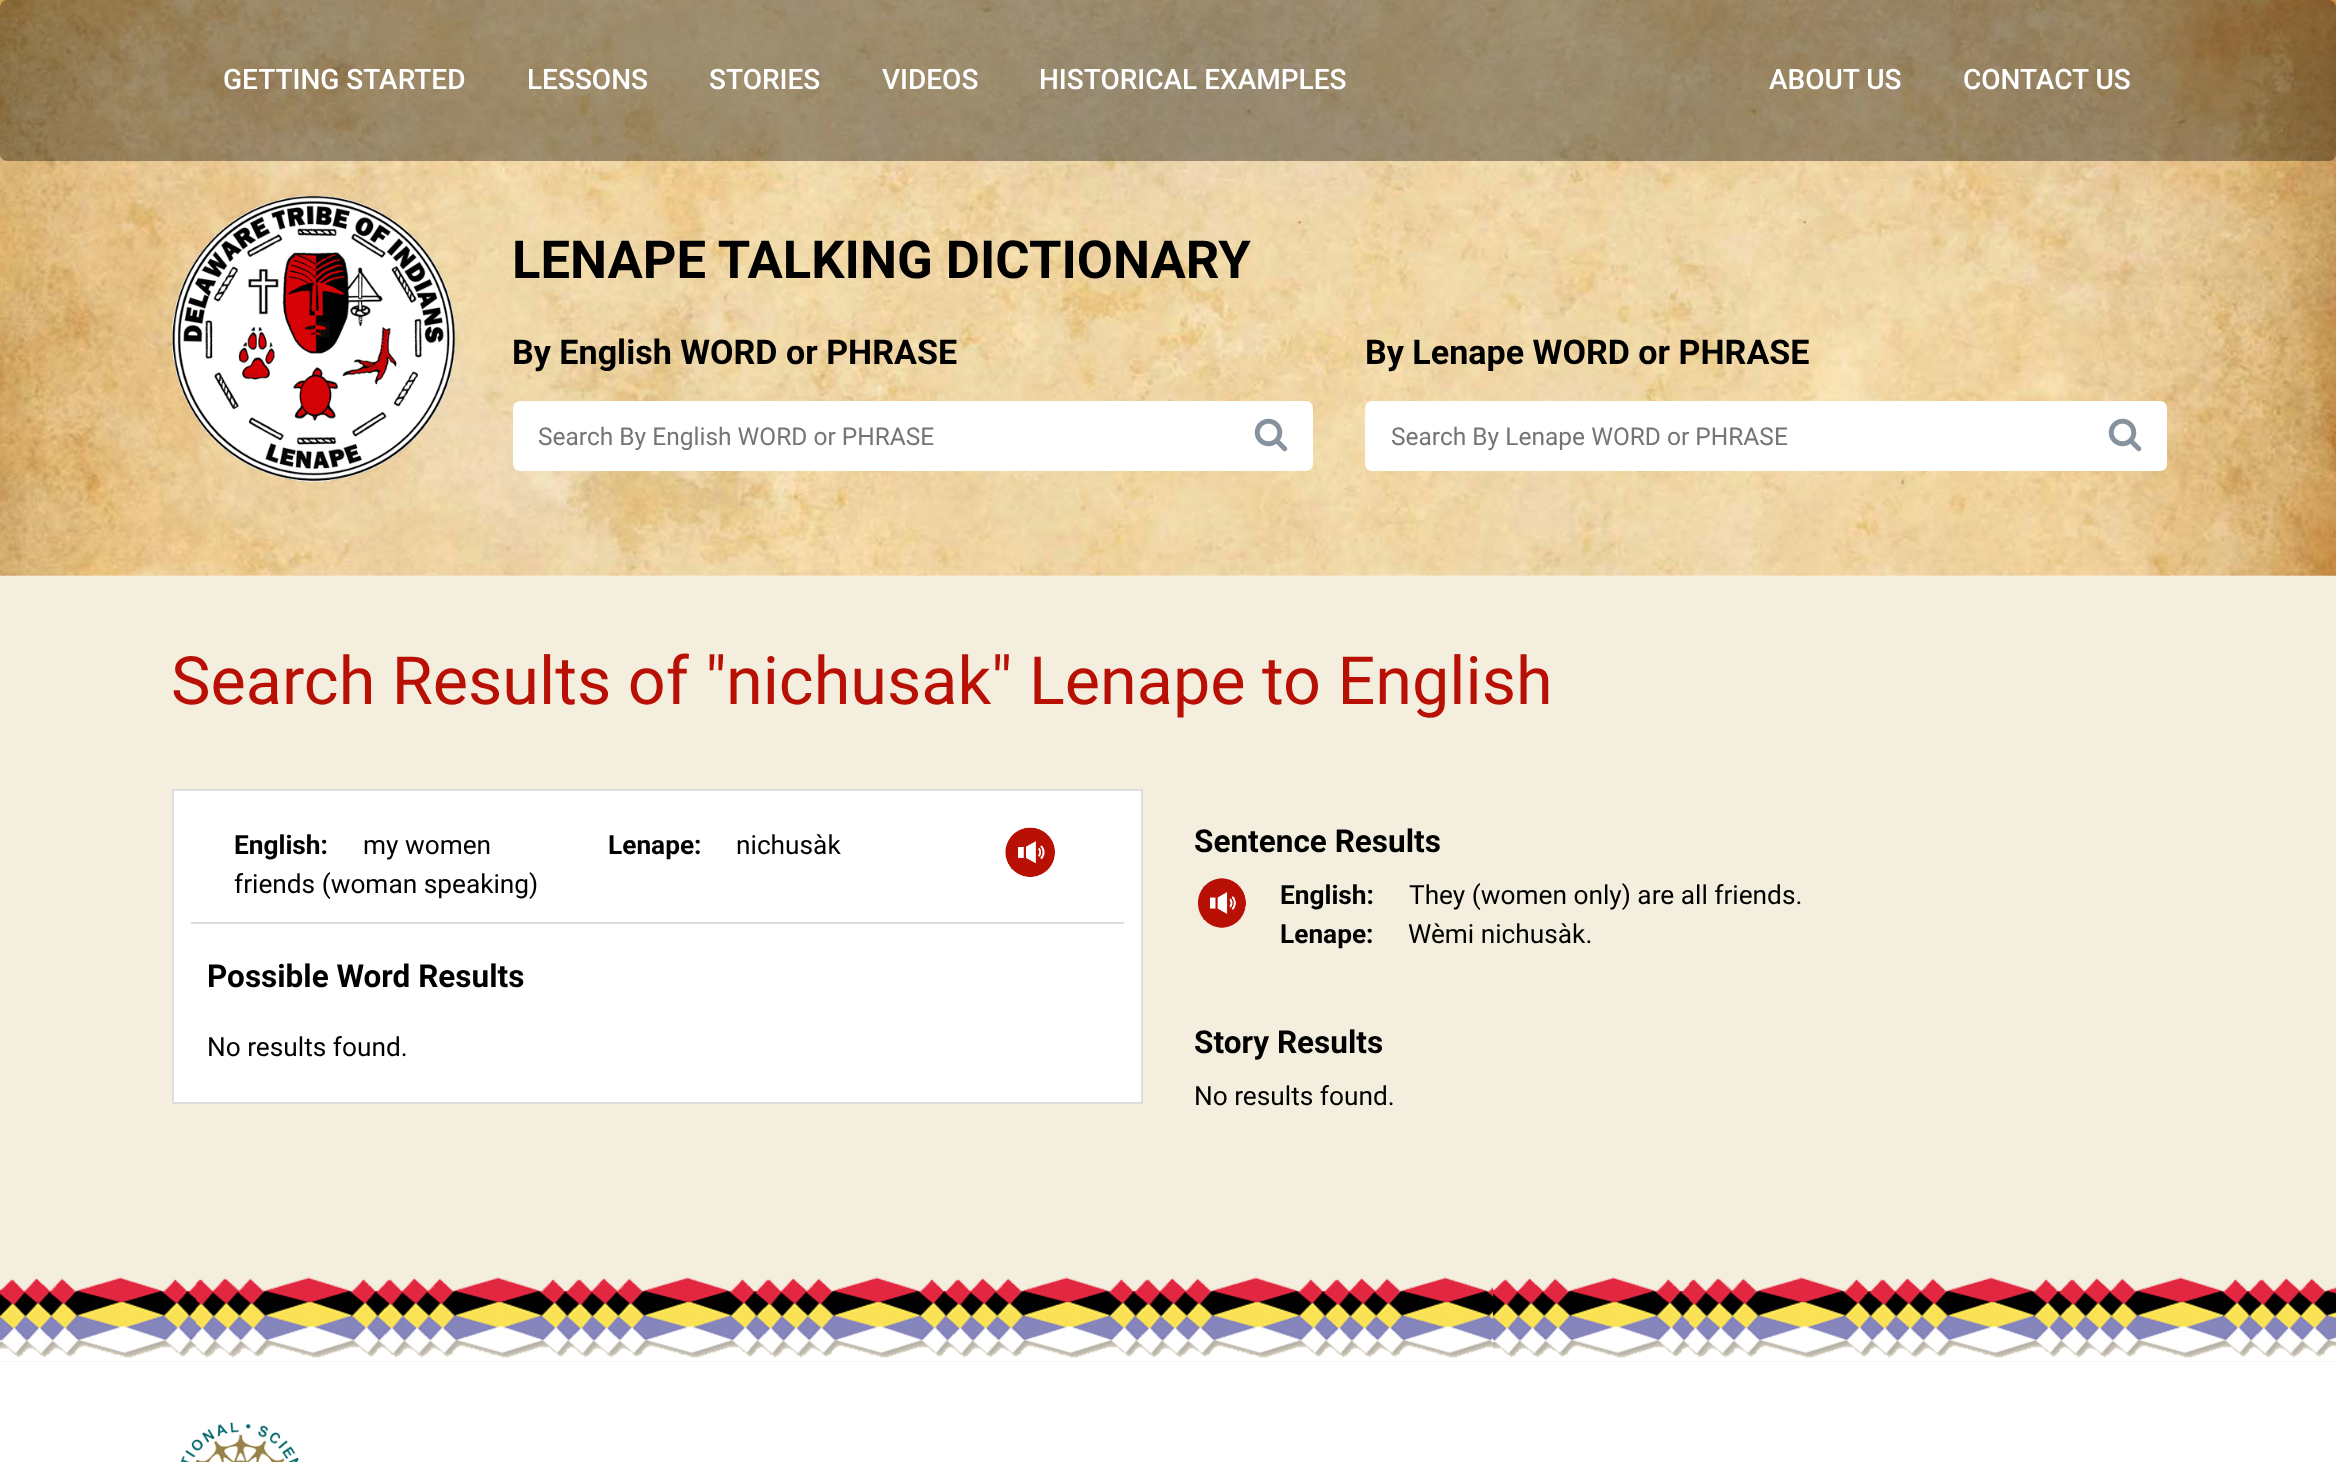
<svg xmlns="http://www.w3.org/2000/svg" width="2336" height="1462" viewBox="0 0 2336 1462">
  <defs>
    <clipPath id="clip1"><path d="M539 422h747v28H539z"/></clipPath>
  </defs>
  <rect width="100%" height="100%" fill="#fff"/>
  <image x="0" y="0" width="2336" height="576" href="img/1.png"/>
  <rect width="2336" height="161" rx="7" fill="#00000059"/>
  <image x="172" y="196" width="284" height="286" href="img/2.png"/>
  <rect x="513" y="401" width="800" height="70" rx="7" fill="#fff"/>
  <image x="1254" y="418" width="34" height="34" href="img/3.png"/>
  <rect x="1365" y="401" width="802" height="70" rx="7" fill="#fff"/>
  <image x="2108" y="418" width="34" height="34" href="img/3.png"/>
  <path d="M0 576h2336v786H0z" fill="#f4eede"/>
  <image x="0" y="1277" width="2336" height="85" href="img/4.png"/>
  <path d="M173 790h969v313H173z" fill="#fff" stroke="#ddd" stroke-width="2"/>
  <path d="M191 922h933v2H191z" fill="#ddd"/>
  <image x="1005" y="827" width="50" height="50" href="img/5.png"/>
  <image x="1198" y="878" width="48" height="50" href="img/6.png"/>
  <image x="180" y="1422" width="119" height="40" href="img/7.png"/>
  <g font-family="Roboto" font-size="28" font-weight="500" fill="#fff">
    <text x="223" y="89">GETTING STARTED</text>
    <text x="527" y="89">LESSONS</text>
    <text x="709" y="89">STORIES</text>
    <text x="882" y="89">VIDEOS</text>
    <text x="1039" y="89">HISTORICAL EXAMPLES</text>
    <text x="1769" y="89">ABOUT US</text>
    <text x="1963" y="89">CONTACT US</text>
  </g>
  <text x="512" y="278" font-family="Roboto" font-size="52.5" font-weight="bold" fill="#000">LENAPE TALKING DICTIONARY</text>
  <text x="512" y="364" font-family="Roboto" font-size="34.1" font-weight="bold" fill="#000">By English WORD or PHRASE</text>
  <g clip-path="url(#clip1)">
    <text x="538" y="445" font-family="Roboto" font-size="24.5" fill="#757575">Search By English WORD or PHRASE</text>
  </g>
  <text x="1365" y="364" font-family="Roboto" font-size="34.1" font-weight="bold" fill="#000">By Lenape WORD or PHRASE</text>
  <text x="1391" y="445" font-family="Roboto" font-size="24.5" fill="#757575">Search By Lenape WORD or PHRASE</text>
  <text x="171" y="704" font-family="Roboto" font-size="66.5" fill="#b81005">Search Results of "nichusak" Lenape to English</text>
  <text x="234" y="854" font-family="Roboto" font-size="26.25" font-weight="bold" fill="#000">English:</text>
  <g font-family="Roboto" font-size="26.25" fill="#000">
    <text x="363" y="854">my women</text>
    <text x="234" y="893">friends (woman speaking)</text>
  </g>
  <text x="608" y="854" font-family="Roboto" font-size="26.25" font-weight="bold" fill="#000">Lenape:</text>
  <text x="736" y="854" font-family="Roboto" font-size="26.25" fill="#000">nichusàk</text>
  <text x="207" y="987" font-family="Roboto" font-size="31.5" font-weight="bold" fill="#000">Possible Word Results</text>
  <text x="207" y="1056" font-family="Roboto" font-size="26.25" fill="#000">No results found.</text>
  <text x="1194" y="852" font-family="Roboto" font-size="31.5" font-weight="bold" fill="#000">Sentence Results</text>
  <text x="1280" y="904" font-family="Roboto" font-size="26.25" font-weight="bold" fill="#000">English:</text>
  <text x="1409" y="904" font-family="Roboto" font-size="26.25" fill="#000">They (women only) are all friends.</text>
  <text x="1280" y="943" font-family="Roboto" font-size="26.25" font-weight="bold" fill="#000">Lenape:</text>
  <text x="1408" y="943" font-family="Roboto" font-size="26.25" fill="#000">Wèmi nichusàk.</text>
  <text x="1194" y="1053" font-family="Roboto" font-size="31.5" font-weight="bold" fill="#000">Story Results</text>
  <text x="1194" y="1105" font-family="Roboto" font-size="26.25" fill="#000">No results found.</text>
</svg>
